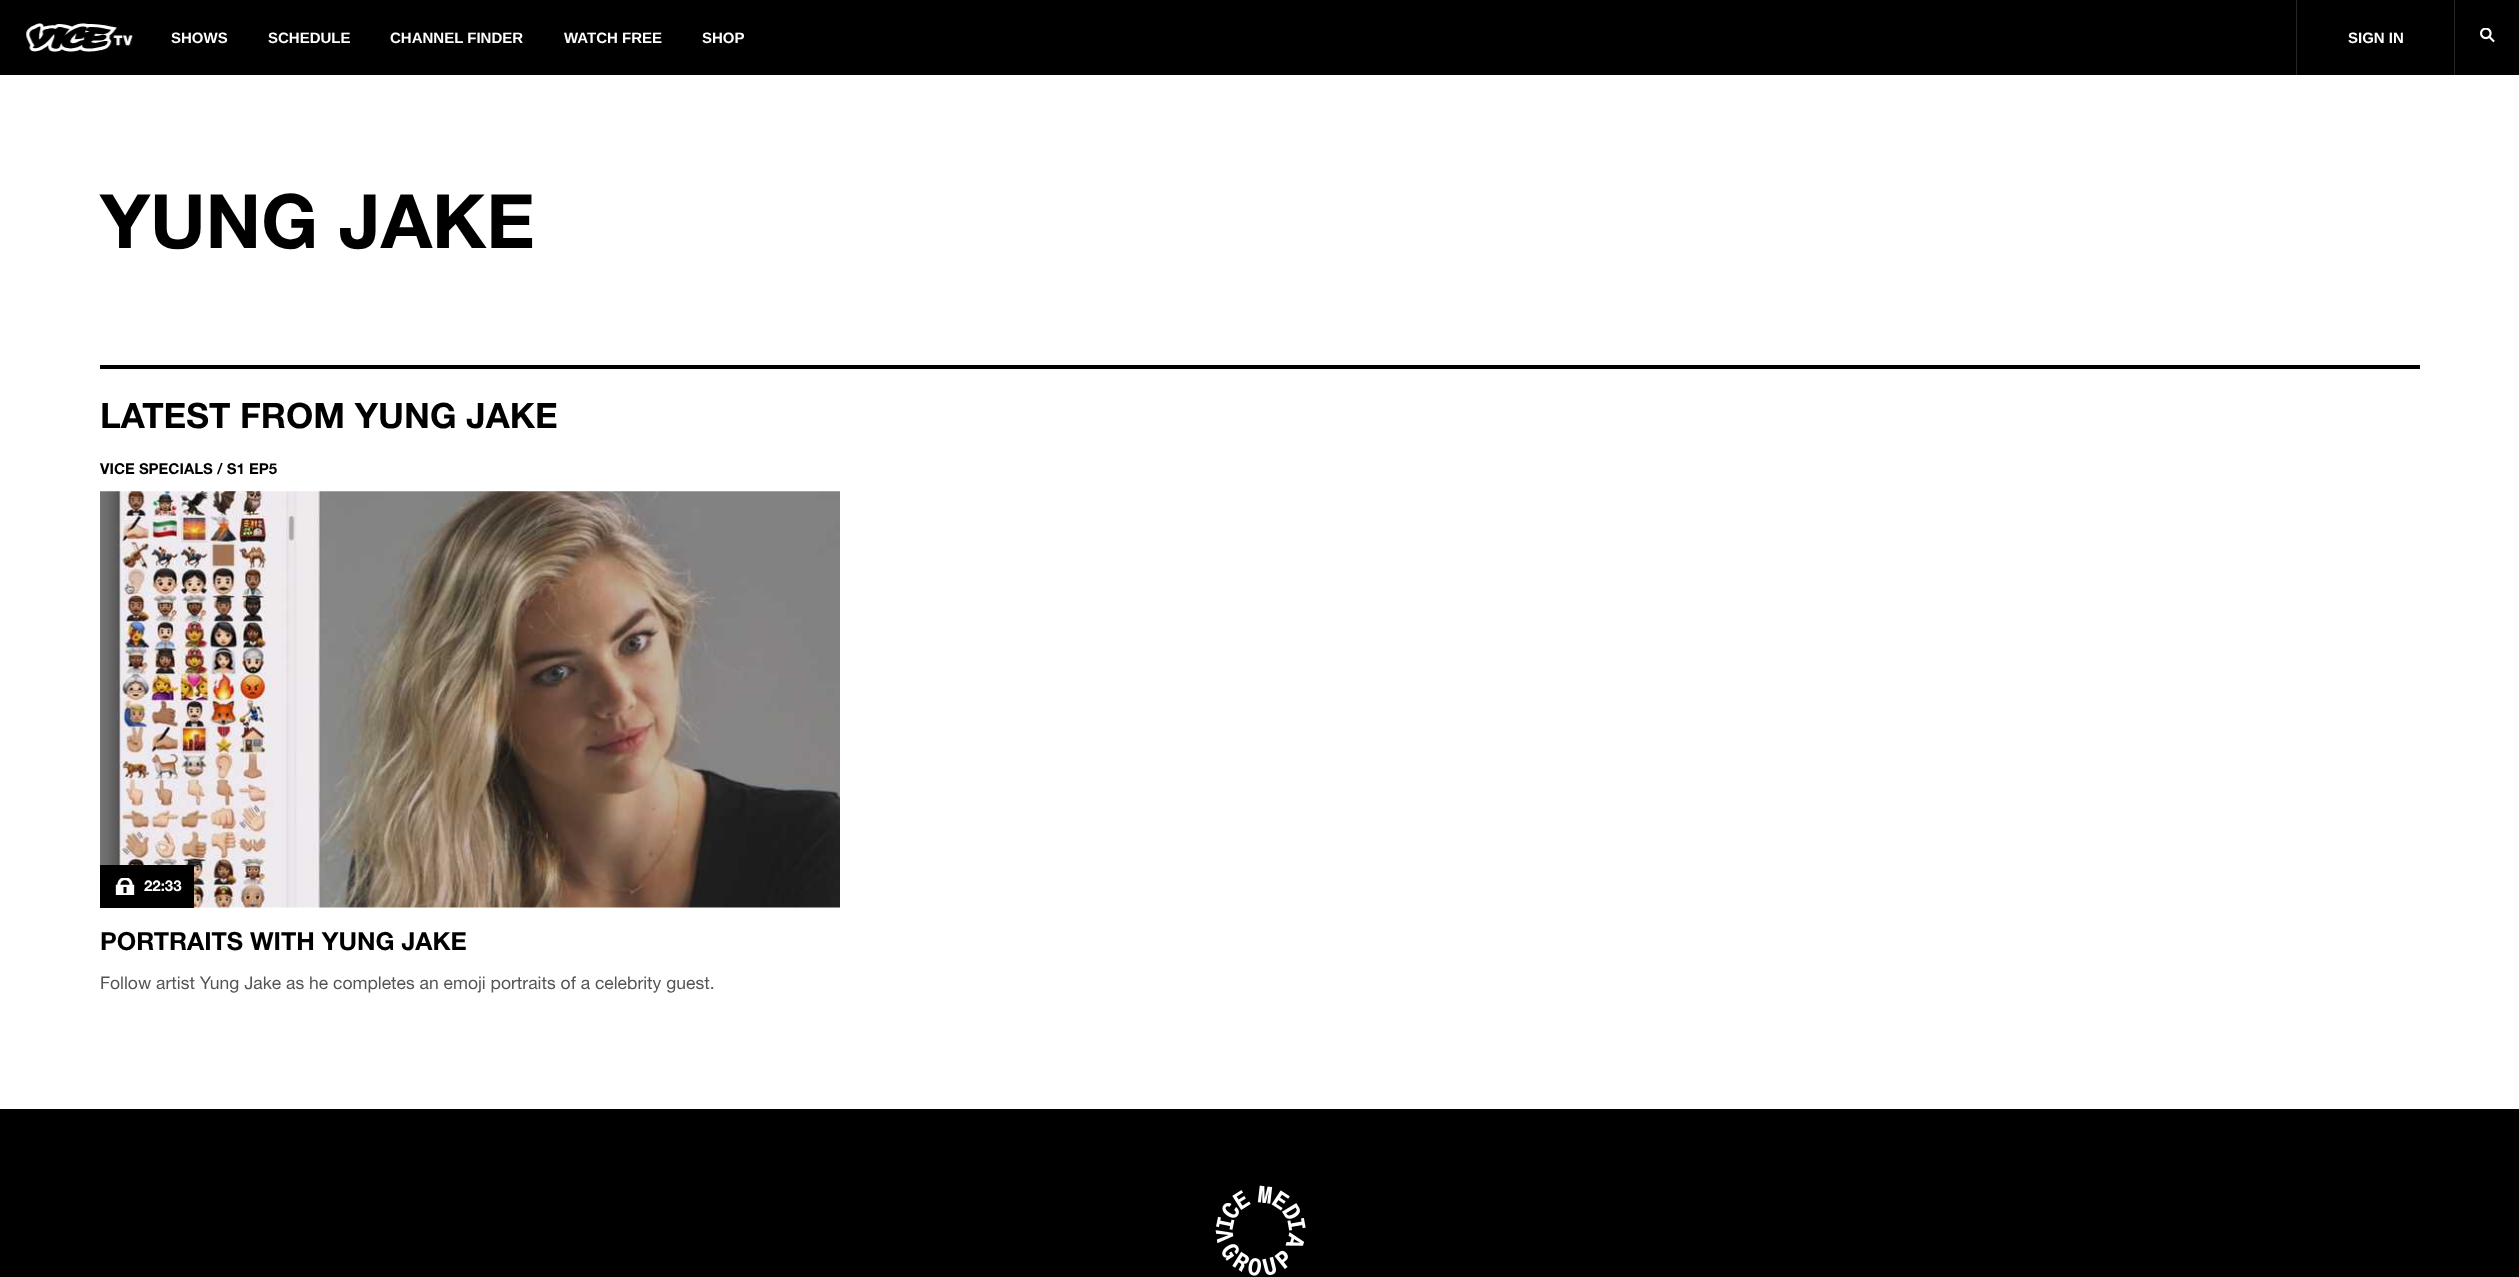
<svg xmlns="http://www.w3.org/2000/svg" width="2519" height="1277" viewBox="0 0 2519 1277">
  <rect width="100%" height="100%" fill="#fff"/>
  <path d="M0 0h2519v75H0z" fill="#000"/>
  <image x="26" y="23" width="107" height="29" href="img/1.png"/>
  <path d="M2454 0h1v75H2454z" fill="#252525"/>
  <path d="M2296 0h1v75H2296z" fill="#252525"/>
  <image x="2480" y="28" width="15" height="15" href="img/2.png"/>
  <path d="M100 365h2320v4H100z" fill="#000"/>
  <image x="100" y="491" width="740" height="417" href="img/3.png"/>
  <path d="M100 865h94v43H100z" fill="#000"/>
  <image x="115" y="878" width="20" height="17" href="img/4.png"/>
  <path d="M0 1109h2519v168H0z" fill="#000"/>
  <image x="1215" y="1185" width="91" height="91" href="img/5.png"/>
  <g font-family="Liberation Sans" font-size="15" font-weight="bold" fill="#fff">
    <text x="171" y="43">SHOWS</text>
    <text x="268" y="43">SCHEDULE</text>
    <text x="390" y="43">CHANNEL FINDER</text>
    <text x="564" y="43">WATCH FREE</text>
    <text x="702" y="43">SHOP</text>
    <text x="2348" y="43">SIGN IN</text>
  </g>
  <text x="100" y="248" font-family="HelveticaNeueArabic" font-size="75" font-weight="bold" fill="#000">YUNG JAKE</text>
  <text x="100" y="428" font-family="HelveticaNeueArabic" font-size="35" font-weight="bold" fill="#000">LATEST FROM YUNG JAKE</text>
  <text x="100" y="474" font-family="HelveticaNeueArabic" font-size="15" font-weight="bold" fill="#000">VICE SPECIALS / S1 EP5</text>
  <text x="144" y="891" font-family="HelveticaNeueArabic" font-size="15" font-weight="bold" fill="#fff">22:33</text>
  <text x="100" y="950" font-family="HelveticaNeueArabic" font-size="25" font-weight="bold" fill="#000">PORTRAITS WITH YUNG JAKE</text>
  <text x="100" y="989" font-family="HelveticaNeueArabic" font-size="17.5" fill="#555">Follow artist Yung Jake as he completes an emoji portraits of a celebrity guest.</text>
</svg>
